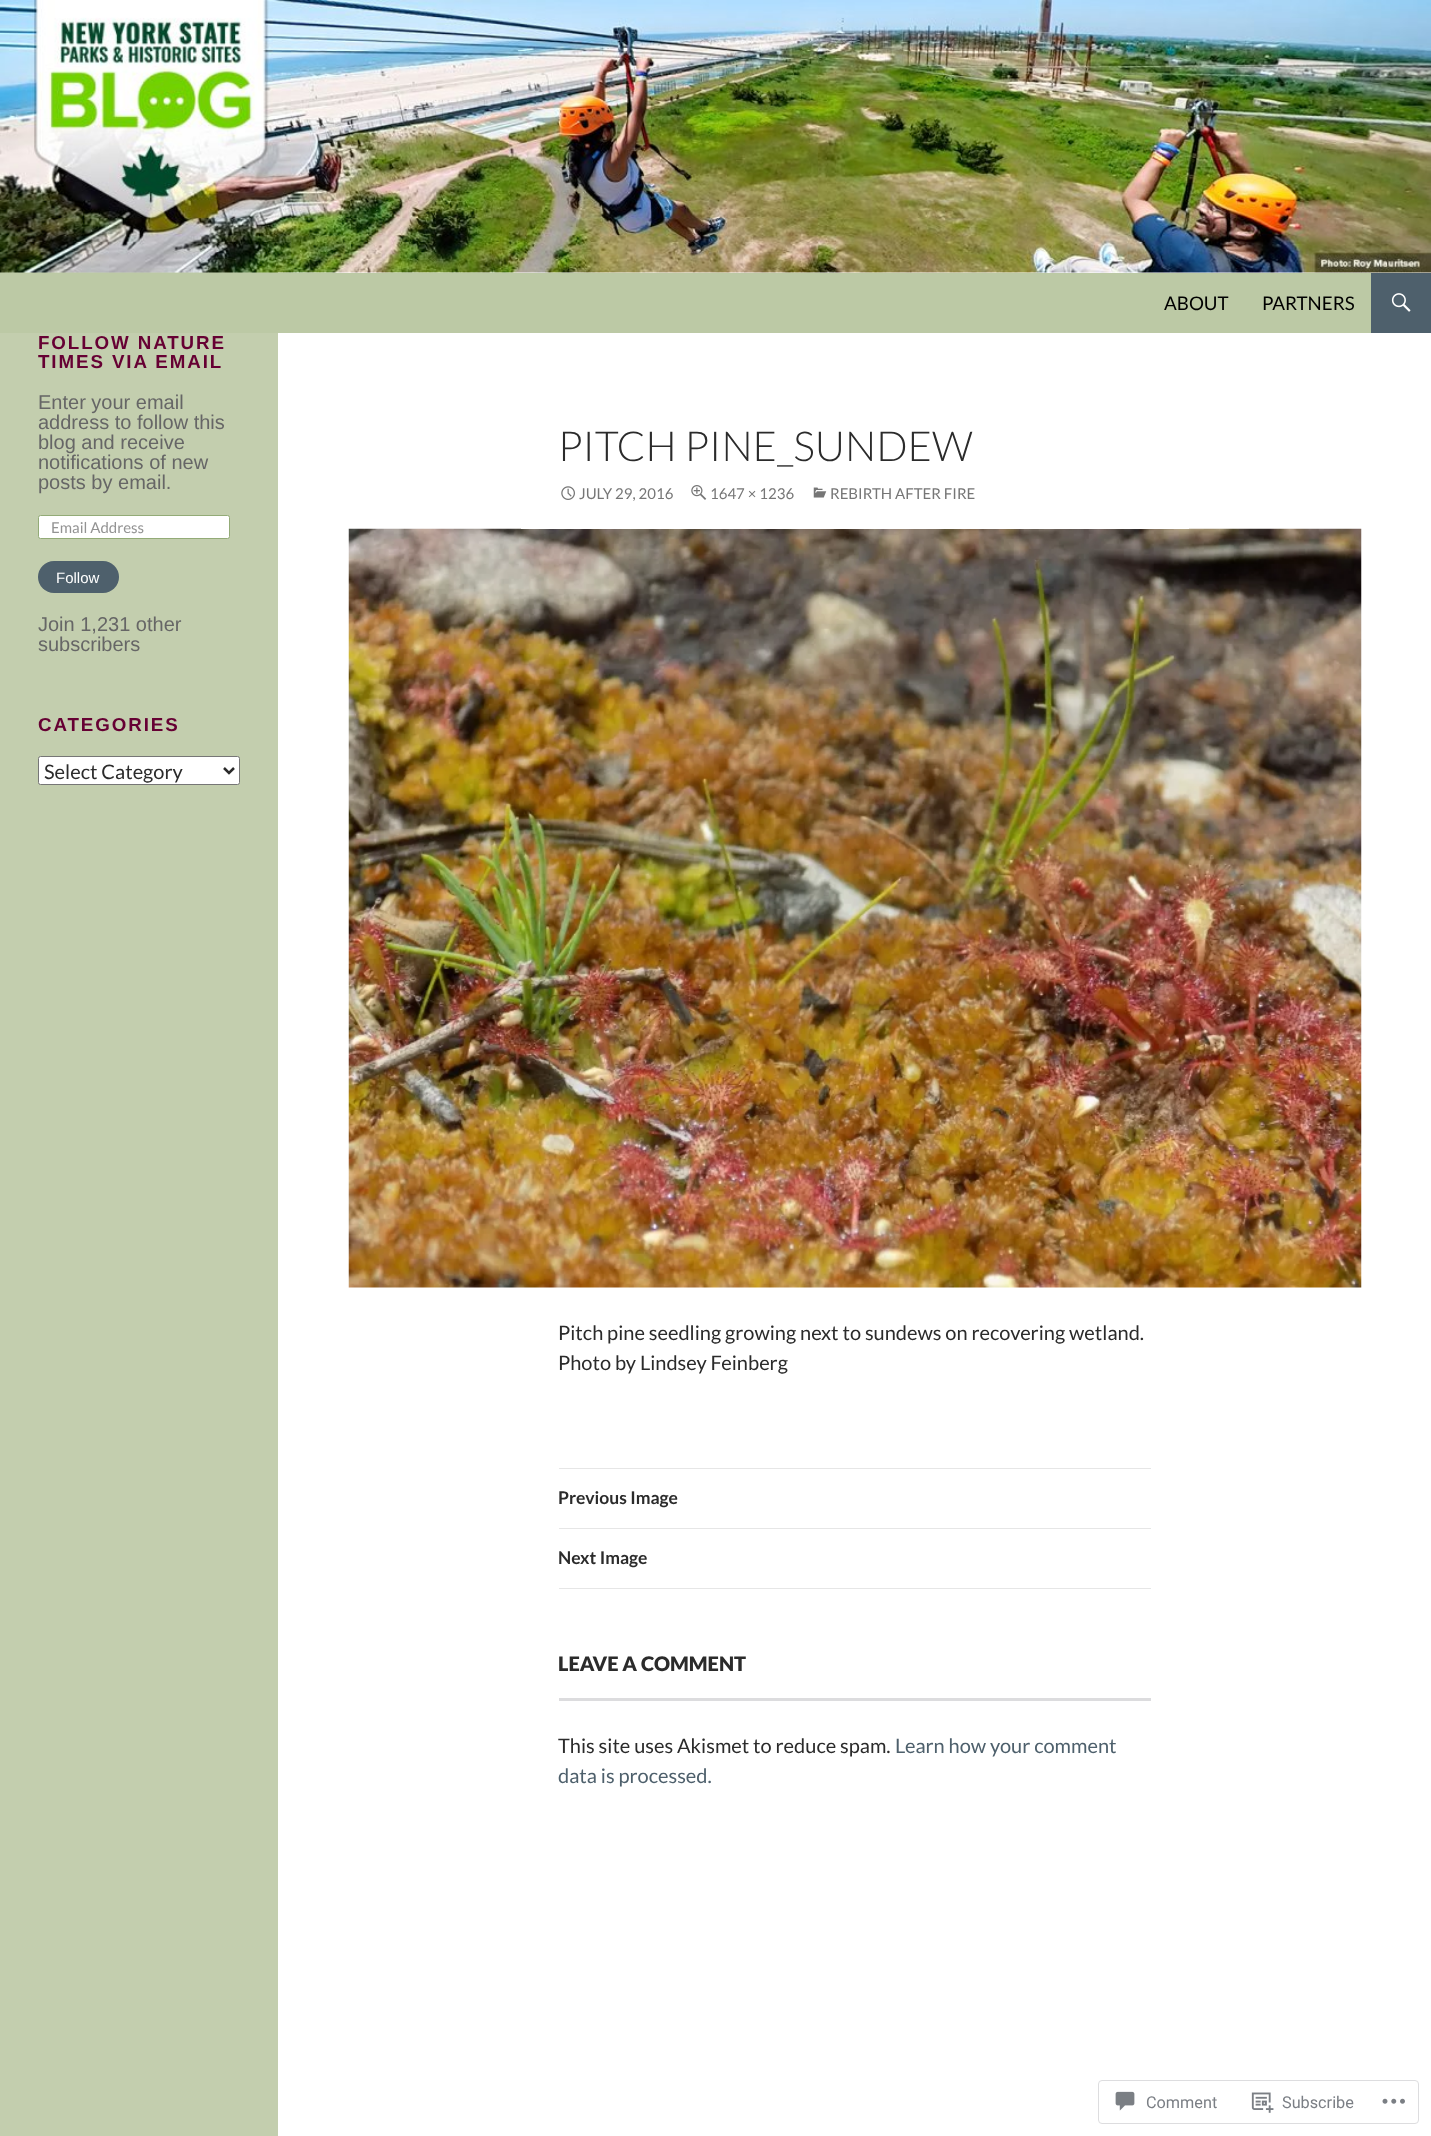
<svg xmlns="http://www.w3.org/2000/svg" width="1431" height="2136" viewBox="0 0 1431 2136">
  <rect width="100%" height="100%" fill="#fff"/>
  <path d="M0 272h278v1864H0z" fill="#c3ceae"/>
  <image x="0" y="0" width="1431" height="273" href="img/1.png"/>
  <path d="M0 273h1371v60H0z" fill="#bcc9a5"/>
  <path d="M1371 273h60v60H1371z" fill="#4e606c"/>
  <image x="1391" y="293" width="20" height="19" href="img/2.png"/>
  <rect x="38.5" y="515.5" width="191" height="23" rx="2" fill="#fff" stroke="#93ab77"/>
  <rect x="38" y="561" width="81" height="32" rx="16" fill="#4e606c"/>
  <rect x="38.5" y="756.5" width="201" height="28" rx="2" fill="#fff" stroke="#767676"/>
  <path d="M224 768L229 773L234 768" fill="none" stroke="#2b2b2b" stroke-width="2.5"/>
  <image x="348" y="528" width="1014" height="760" href="img/6.png"/>
  <path d="M521 528h668v1H521z" fill="#fff"/>
  <image x="561" y="486" width="14" height="14" href="img/3.png"/>
  <image x="691" y="485" width="16" height="15" href="img/4.png"/>
  <image x="813" y="487" width="14" height="11" href="img/5.png"/>
  <path d="M559 1468h592v1H559z" fill="#e6e6e6"/>
  <path d="M559 1528h592v1H559z" fill="#e6e6e6"/>
  <path d="M559 1588h592v1H559z" fill="#e6e6e6"/>
  <path d="M559 1698h592v3H559z" fill="#dcdcde"/>
  <rect x="1098.5" y="2080.5" width="320" height="43" rx="3.5" fill="none" stroke="#dddddf"/>
  <image x="1115" y="2091" width="20" height="20" href="img/7.png"/>
  <image x="1251" y="2092" width="23" height="21" href="img/8.png"/>
  <image x="1382" y="2098" width="23" height="6" href="img/9.png"/>
  <g font-family="Lato" font-size="18.75" fill="#000">
    <text x="1164" y="310">ABOUT</text>
    <text x="1262" y="310">PARTNERS</text>
  </g>
  <g font-family="Liberation Sans" font-size="18.75" font-weight="bold" letter-spacing="1.9" fill="#603">
    <text x="38" y="349">FOLLOW NATURE</text>
    <text x="38" y="368">TIMES VIA EMAIL</text>
  </g>
  <g font-family="Liberation Sans" font-size="20" fill="#666">
    <text x="38" y="409">Enter your email</text>
    <text x="38" y="429">address to follow this</text>
    <text x="38" y="449">blog and receive</text>
    <text x="38" y="469">notifications of new</text>
    <text x="38" y="489">posts by email.</text>
  </g>
  <text x="51" y="533" font-family="Lato" font-size="15" fill="#939393">Email Address</text>
  <text x="56" y="583" font-family="Liberation Sans" font-size="15" fill="#fff">Follow</text>
  <g font-family="Liberation Sans" font-size="20" fill="#666">
    <text x="38" y="631">Join 1,231 other</text>
    <text x="38" y="651">subscribers</text>
  </g>
  <text x="38" y="731" font-family="Liberation Sans" font-size="18.75" font-weight="bold" letter-spacing="1.9" fill="#603">CATEGORIES</text>
  <text x="44" y="779" font-family="Lato" font-size="20" fill="#2b2b2b">Select Category</text>
  <text x="558" y="461" font-family="Lato" font-size="41.25" font-weight="300" fill="#2b2b2b">PITCH PINE_SUNDEW</text>
  <g font-family="Lato" font-size="15" fill="#767676">
    <text x="579" y="499">JULY 29, 2016</text>
    <text x="710" y="499">1647 × 1236</text>
    <text x="830" y="499">REBIRTH AFTER FIRE</text>
  </g>
  <g font-family="Lato" font-size="20" fill="#2b2b2b">
    <text x="558" y="1340">Pitch pine seedling growing next to sundews on recovering wetland.</text>
    <text x="558" y="1370">Photo by Lindsey Feinberg</text>
  </g>
  <g font-family="Lato" font-size="17.5" font-weight="bold" fill="#2b2b2b">
    <text x="558" y="1504">Previous Image</text>
    <text x="558" y="1564">Next Image</text>
  </g>
  <text x="558" y="1671" font-family="Lato" font-size="20" font-weight="900" fill="#2b2b2b">LEAVE A COMMENT</text>
  <text x="558" y="1753" font-family="Lato" font-size="20" fill="#2b2b2b">This site uses Akismet to reduce spam.</text>
  <g font-family="Lato" font-size="20" fill="#4e606c">
    <text x="895" y="1753">Learn how your comment</text>
    <text x="558" y="1783">data is processed.</text>
  </g>
  <g font-family="Roboto" font-size="16.25" fill="#7b7f85">
    <text x="1146" y="2108">Comment</text>
    <text x="1282" y="2108">Subscribe</text>
  </g>
</svg>
